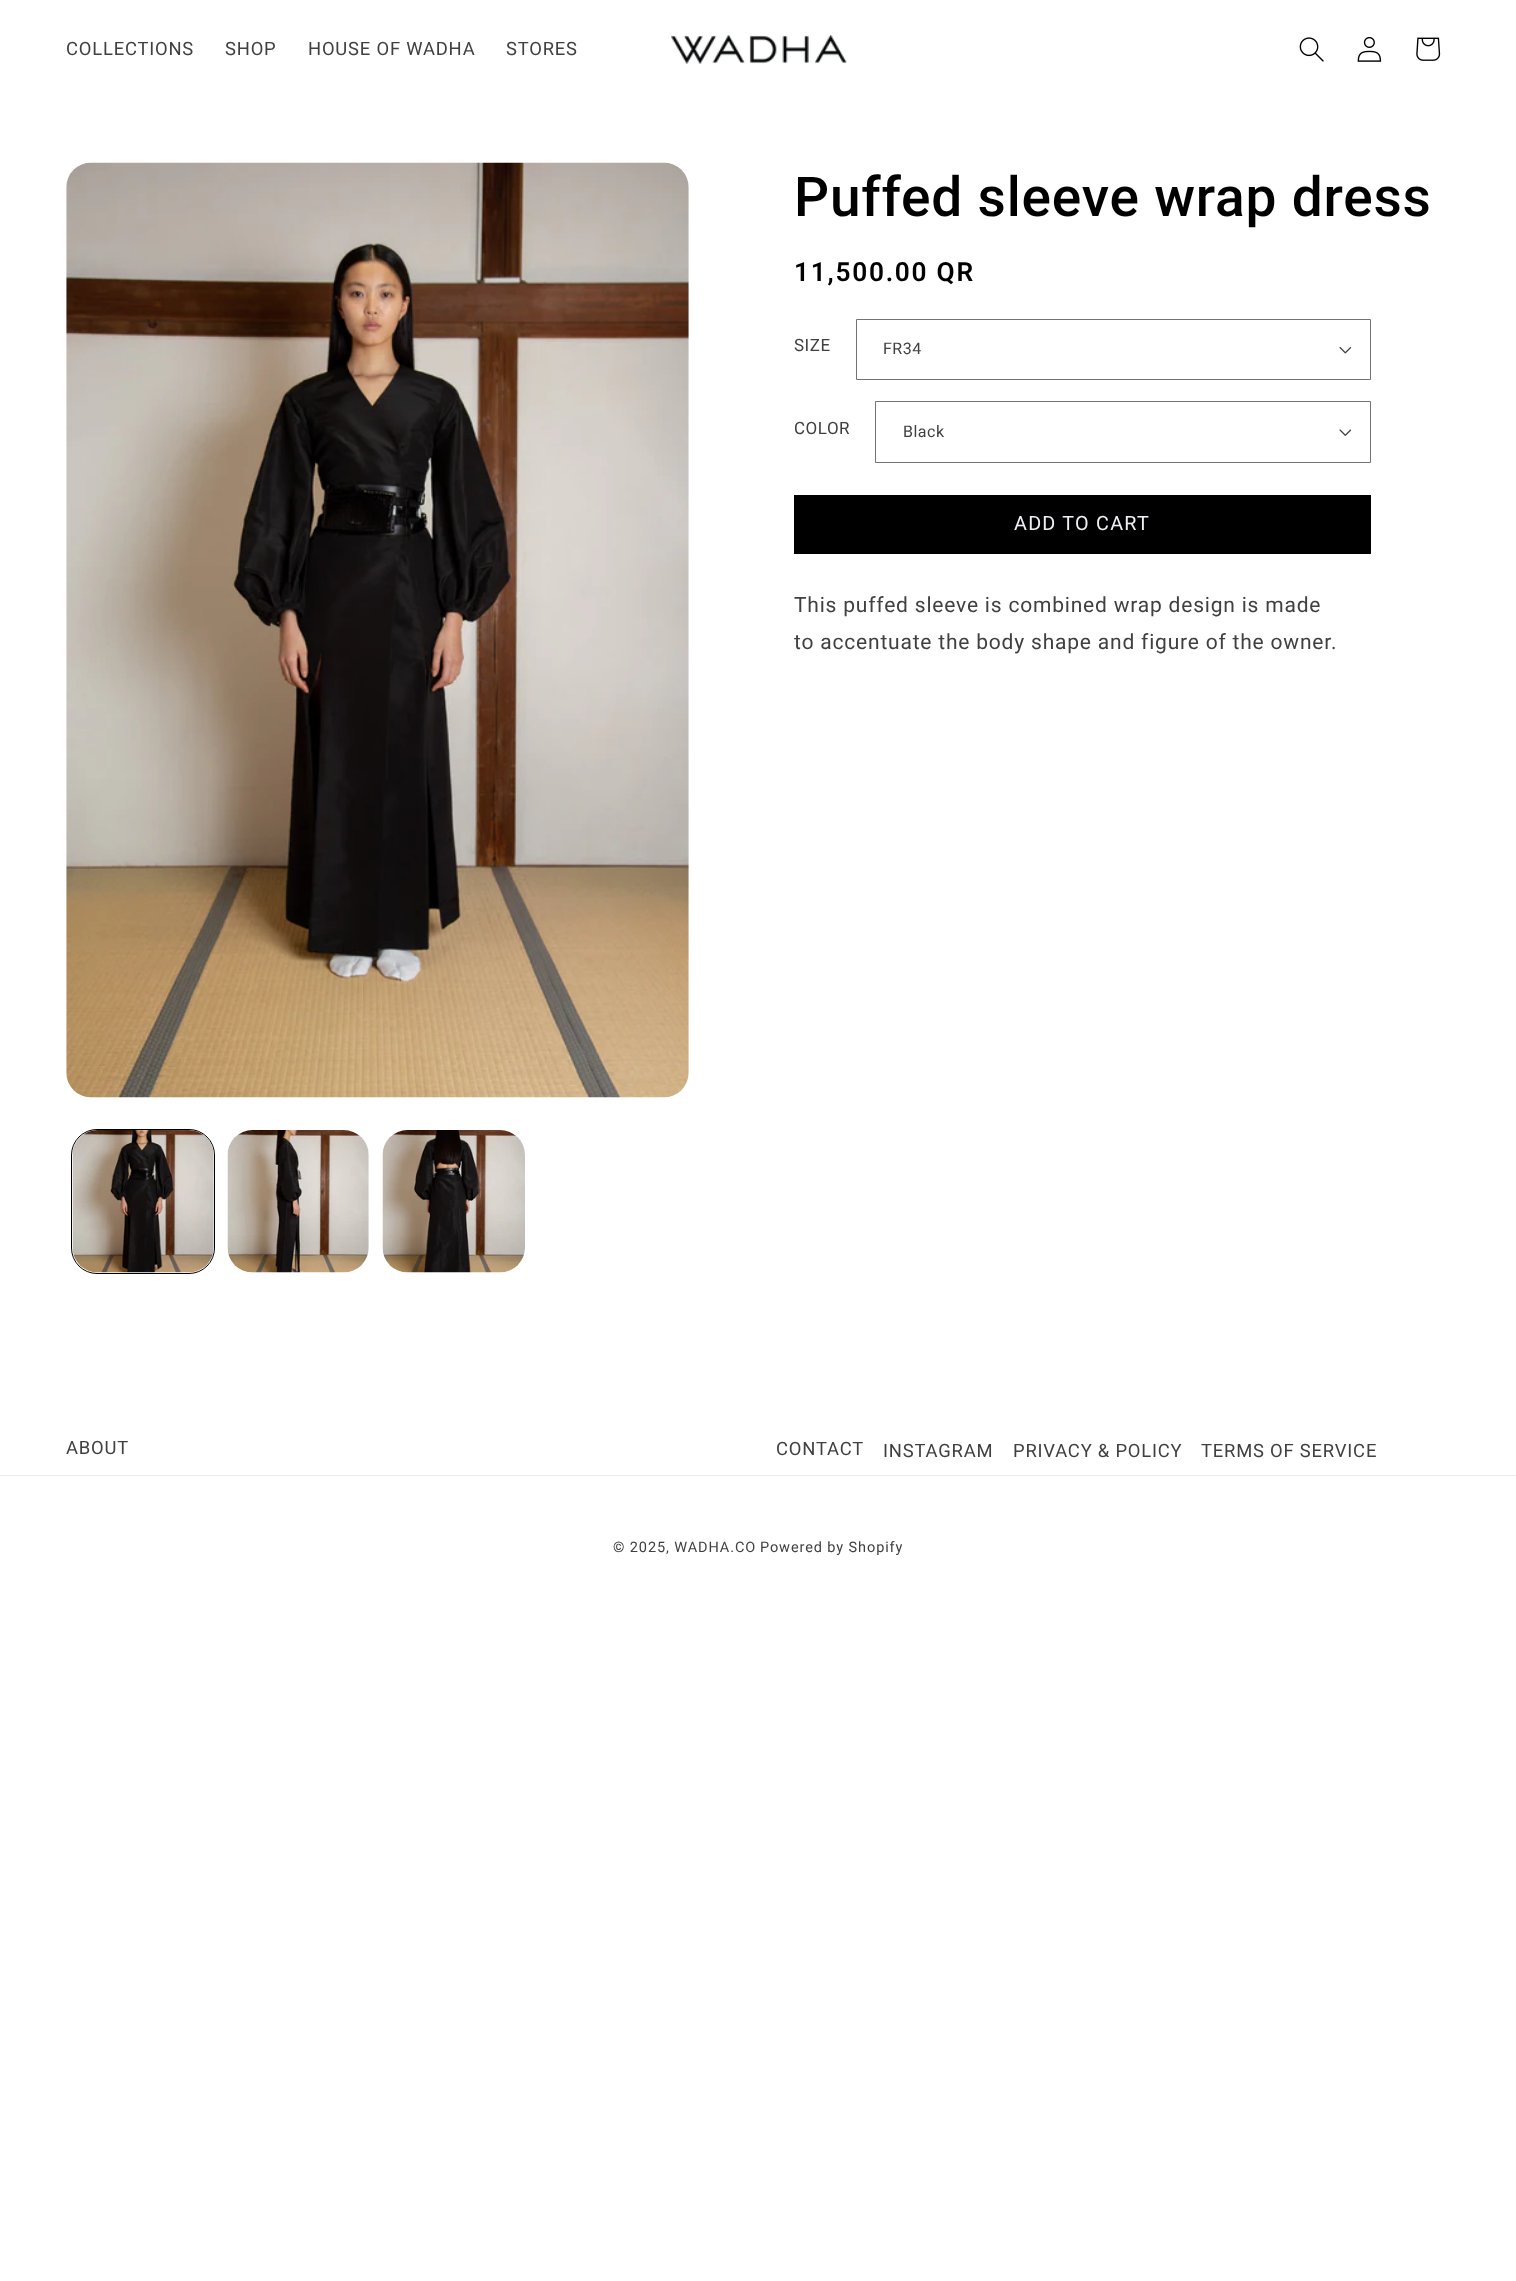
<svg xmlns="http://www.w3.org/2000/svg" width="1516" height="2281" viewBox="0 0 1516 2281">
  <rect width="100%" height="100%" fill="#fff"/>
  <image x="671" y="35" width="176" height="29" href="img/1.png"/>
  <image x="1299" y="37" width="25" height="25" href="img/2.png"/>
  <image x="1357" y="36" width="25" height="26" href="img/3.png"/>
  <image x="1416" y="37" width="25" height="24" href="img/4.png"/>
  <image x="66" y="162" width="623" height="936" href="img/5.png"/>
  <rect x="71.5" y="1129.5" width="143" height="144" rx="25.5" fill="none" stroke="#000"/>
  <image x="72" y="1130" width="142" height="143" href="img/6.png"/>
  <image x="227" y="1130" width="142" height="143" href="img/7.png"/>
  <image x="382" y="1130" width="143" height="143" href="img/8.png"/>
  <image x="1339" y="347" width="12" height="7" href="img/9.png"/>
  <path d="M856.5 319.5h514v60H856.5z" fill="none" stroke="#737373"/>
  <image x="1339" y="429" width="12" height="7" href="img/10.png"/>
  <path d="M875.5 401.5h495v61H875.5z" fill="none" stroke="#737373"/>
  <path d="M794 495h577v59H794z" fill="#000"/>
  <path d="M0 1475h1516v1H0z" fill="#ebebeb"/>
  <g font-family="Roboto" font-size="18.4" letter-spacing="0.8" fill="#404040">
    <text x="66" y="55">COLLECTIONS</text>
    <text x="225" y="55">SHOP</text>
    <text x="308" y="55">HOUSE OF WADHA</text>
    <text x="506" y="55">STORES</text>
  </g>
  <text x="794" y="216" font-family="Roboto" font-size="55" font-weight="500" letter-spacing="0.8" fill="#000">Puffed sleeve wrap dress</text>
  <text x="794" y="281" font-family="Roboto" font-size="26.25" font-weight="600" letter-spacing="1.75" fill="#000">11,500.00 QR</text>
  <text x="794" y="351" font-family="Roboto" font-size="17" letter-spacing="0.5" fill="#404040">SIZE</text>
  <text x="883" y="354" font-family="Roboto" font-size="16" letter-spacing="0.5" fill="#404040">FR34</text>
  <text x="794" y="434" font-family="Roboto" font-size="17" letter-spacing="0.5" fill="#404040">COLOR</text>
  <text x="903" y="437" font-family="Roboto" font-size="16" letter-spacing="0.5" fill="#404040">Black</text>
  <text x="1014" y="530" font-family="Roboto" font-size="19.75" letter-spacing="1.25" fill="#eff0f5">ADD TO CART</text>
  <g font-family="Roboto" font-size="21" letter-spacing="0.8" fill="#404040">
    <text x="794" y="612">This puffed sleeve is combined wrap design is made</text>
    <text x="794" y="649">to accentuate the body shape and figure of the owner.</text>
  </g>
  <g font-family="Roboto" font-size="18.4" letter-spacing="0.8" fill="#404040">
    <text x="66" y="1454">ABOUT</text>
    <text x="776" y="1455">CONTACT</text>
    <text x="883" y="1457">INSTAGRAM</text>
    <text x="1013" y="1457">PRIVACY &amp; POLICY</text>
    <text x="1201" y="1457">TERMS OF SERVICE</text>
  </g>
  <g font-family="Roboto" font-size="14.5" letter-spacing="0.9" fill="#404040">
    <text x="613" y="1552">© 2025, WADHA.CO</text>
    <text x="760" y="1552">Powered by Shopify</text>
  </g>
</svg>
